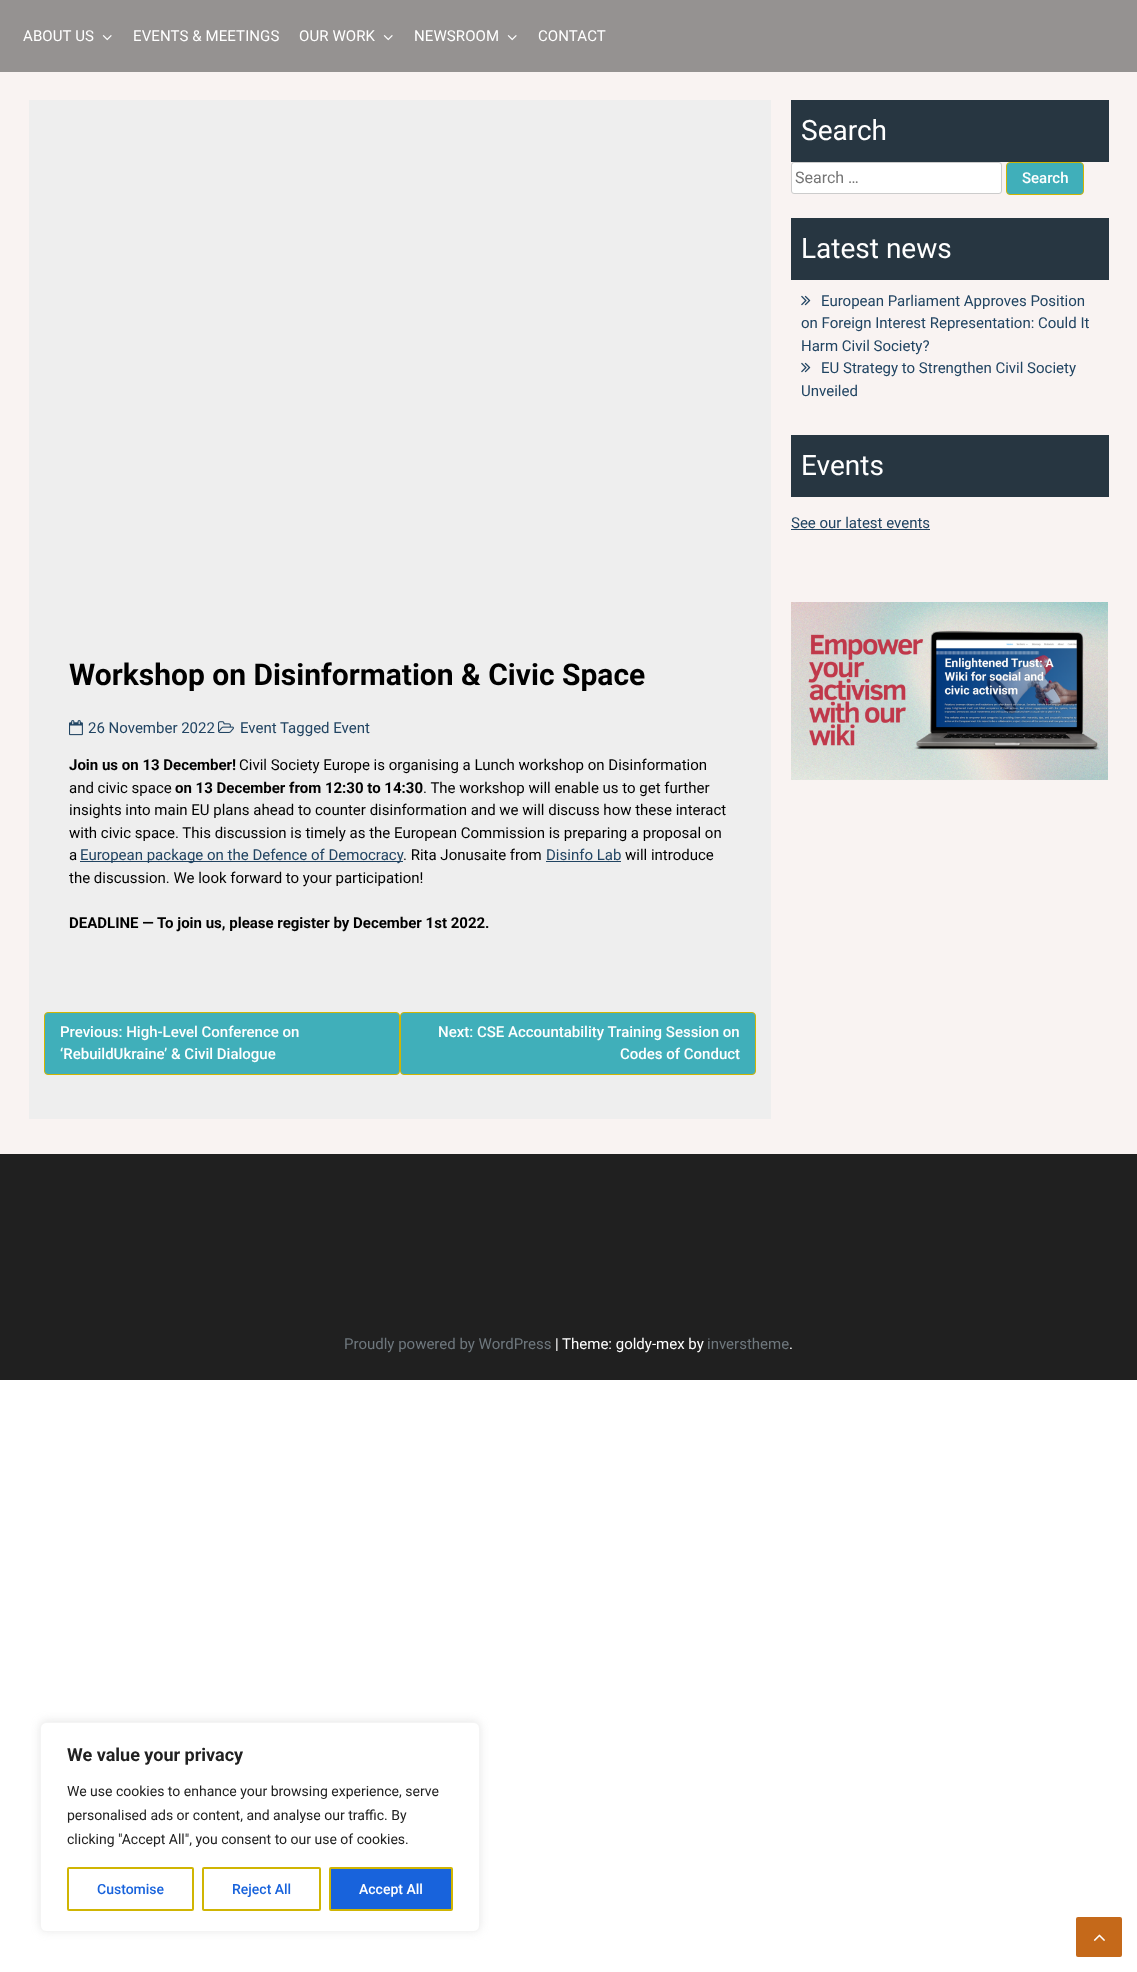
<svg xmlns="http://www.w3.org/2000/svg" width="1137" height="1972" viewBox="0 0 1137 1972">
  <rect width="100%" height="100%" fill="#fff"/>
  <path d="M0 0h1137v72H0z" fill="#959291"/>
  <image x="102" y="35" width="10" height="6" href="img/1.png"/>
  <image x="383" y="35" width="10" height="6" href="img/2.png"/>
  <image x="507" y="35" width="10" height="6" href="img/3.png"/>
  <path d="M0 72h1137v1082H0z" fill="#f9f3f2"/>
  <path d="M791 100h318v62H791z" fill="#273641"/>
  <rect x="791.5" y="162.5" width="210" height="31" rx="2.5" fill="#fff" stroke="#ccc"/>
  <rect x="1006.5" y="162.5" width="77" height="32" rx="3.5" fill="#40afba" stroke="#d0b503"/>
  <path d="M791 218h318v62H791z" fill="#273641"/>
  <image x="801" y="295" width="10" height="11" href="img/4.png"/>
  <image x="801" y="362" width="10" height="11" href="img/4.png"/>
  <path d="M791 435h318v62H791z" fill="#273641"/>
  <path d="M791 529h139v1H791z" fill="#214462"/>
  <image x="791" y="602" width="317" height="178" href="img/5.png"/>
  <path d="M29 100h742v1019H29z" fill="#eee"/>
  <image x="69" y="720" width="14" height="16" href="img/6.png"/>
  <image x="218" y="721" width="16" height="12" href="img/7.png"/>
  <path d="M80 861h323v1H80z" fill="#214462"/>
  <path d="M546 861h75v1H546z" fill="#214462"/>
  <rect x="44.5" y="1012.5" width="355" height="62" rx="3.5" fill="#40afba" stroke="#d0b503"/>
  <rect x="400.5" y="1012.5" width="355" height="62" rx="3.5" fill="#40afba" stroke="#d0b503"/>
  <path d="M0 1154h1137v226H0z" fill="#202020"/>
  <rect x="1076" y="1917" width="46" height="40" rx="2" fill="#c5691a"/>
  <image x="1093" y="1934" width="12" height="7" href="img/8.png"/>
  <rect x="40" y="1721" width="440" height="210" rx="6" fill="#acabab4d" filter="blur(5px)"/>
  <rect x="40.5" y="1722.5" width="439" height="209" rx="5.5" fill="#fff" stroke="#f4f4f4"/>
  <rect x="68" y="1868" width="125" height="42" rx="1" fill="none" stroke="#d0b503" stroke-width="2"/>
  <rect x="203" y="1868" width="117" height="42" rx="1" fill="none" stroke="#d0b503" stroke-width="2"/>
  <rect x="330" y="1868" width="122" height="42" rx="1" fill="#1863dc" stroke="#d0b503" stroke-width="2"/>
  <g font-family="Roboto" font-size="15" letter-spacing="0.1" fill="#fff">
    <text x="23" y="41">ABOUT US</text>
    <text x="133" y="41">EVENTS &amp; MEETINGS</text>
    <text x="299" y="41">OUR WORK</text>
    <text x="414" y="41">NEWSROOM</text>
    <text x="538" y="41">CONTACT</text>
  </g>
  <text x="801" y="140" font-family="Roboto" font-size="28" fill="#fff">Search</text>
  <text x="795" y="183" font-family="Roboto" font-size="16" fill="#757575">Search …</text>
  <text x="1022" y="183" font-family="Roboto" font-size="15" font-weight="500" fill="#fff">Search</text>
  <text x="801" y="258" font-family="Roboto" font-size="28" fill="#fff">Latest news</text>
  <g font-family="Roboto" font-size="15" fill="#214462">
    <text x="821" y="306">European Parliament Approves Position</text>
    <text x="801" y="328">on Foreign Interest Representation: Could It</text>
    <text x="801" y="351">Harm Civil Society?</text>
    <text x="821" y="373">EU Strategy to Strengthen Civil Society</text>
    <text x="801" y="396">Unveiled</text>
  </g>
  <text x="801" y="475" font-family="Roboto" font-size="28" fill="#fff">Events</text>
  <text x="791" y="528" font-family="Roboto" font-size="15" fill="#214462">See our latest events</text>
  <text x="69" y="685" font-family="Roboto" font-size="30" font-weight="bold" fill="#000">Workshop on Disinformation &amp; Civic Space</text>
  <g font-family="Roboto" font-size="15" fill="#214462">
    <text x="88" y="733">26 November 2022</text>
    <text x="240" y="733">Event</text>
    <text x="280" y="733">Tagged Event</text>
  </g>
  <text x="69" y="770" font-family="Roboto" font-size="15" font-weight="bold" fill="#000">Join us on 13 December!</text>
  <g font-family="Roboto" font-size="15" fill="#000">
    <text x="239" y="770">Civil Society Europe is organising a Lunch workshop on Disinformation</text>
    <text x="69" y="793">and civic space</text>
  </g>
  <text x="175" y="793" font-family="Roboto" font-size="15" font-weight="bold" fill="#000">on 13 December from 12:30 to 14:30</text>
  <g font-family="Roboto" font-size="15" fill="#000">
    <text x="423" y="793">. The workshop will enable us to get further</text>
    <text x="69" y="815">insights into main EU plans ahead to counter disinformation and we will discuss how these interact</text>
    <text x="69" y="838">with civic space. This discussion is timely as the European Commission is preparing a proposal on</text>
    <text x="69" y="860">a</text>
  </g>
  <text x="80" y="860" font-family="Roboto" font-size="15" fill="#214462">European package on the Defence of Democracy</text>
  <text x="403" y="860" font-family="Roboto" font-size="15" fill="#000">. Rita Jonusaite from</text>
  <text x="546" y="860" font-family="Roboto" font-size="15" fill="#214462">Disinfo Lab</text>
  <g font-family="Roboto" font-size="15" fill="#000">
    <text x="625" y="860">will introduce</text>
    <text x="69" y="883">the discussion. We look forward to your participation!</text>
  </g>
  <text x="69" y="928" font-family="Roboto" font-size="15" font-weight="bold" fill="#000">DEADLINE — To join us, please register by December 1st 2022.</text>
  <g font-family="Roboto" font-size="15" font-weight="500" fill="#fff">
    <text x="60" y="1037">Previous: High-Level Conference on</text>
    <text x="60" y="1059">‘RebuildUkraine’ &amp; Civil Dialogue</text>
    <text x="438" y="1037">Next: CSE Accountability Training Session on</text>
    <text x="620" y="1059">Codes of Conduct</text>
  </g>
  <text x="344" y="1349" font-family="Roboto" font-size="15" fill="#6e777d">Proudly powered by WordPress</text>
  <text x="555" y="1349" font-family="Roboto" font-size="15" fill="#fff">| Theme: goldy-mex by</text>
  <text x="707" y="1349" font-family="Roboto" font-size="15" fill="#6e777d">inverstheme</text>
  <text x="789" y="1349" font-family="Roboto" font-size="15" fill="#fff">.</text>
  <text x="67" y="1761" font-family="Roboto" font-size="18" font-weight="bold" fill="#212121">We value your privacy</text>
  <g font-family="Roboto" font-size="14" fill="#212121">
    <text x="67" y="1796">We use cookies to enhance your browsing experience, serve</text>
    <text x="67" y="1820">personalised ads or content, and analyse our traffic. By</text>
    <text x="67" y="1844">clicking "Accept All", you consent to our use of cookies.</text>
  </g>
  <g font-family="Roboto" font-size="14" font-weight="500" fill="#1863dc">
    <text x="97" y="1894">Customise</text>
    <text x="232" y="1894">Reject All</text>
  </g>
  <text x="359" y="1894" font-family="Roboto" font-size="14" font-weight="500" fill="#fff">Accept All</text>
</svg>
